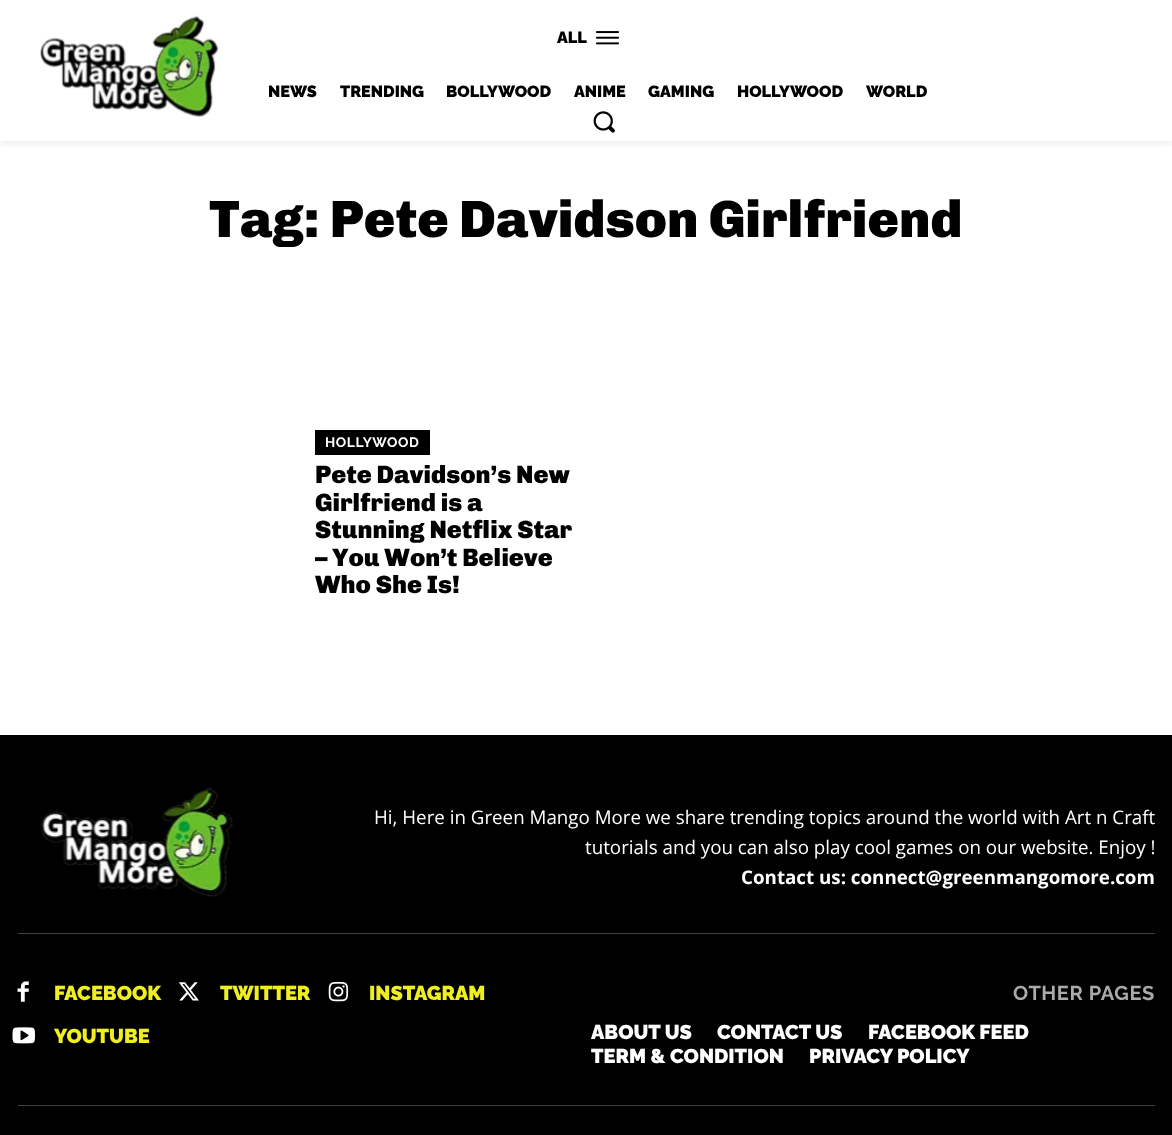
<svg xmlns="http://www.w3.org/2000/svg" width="1172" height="1135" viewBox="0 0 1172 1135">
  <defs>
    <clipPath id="clip1"><path d="M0 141h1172v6H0z"/></clipPath>
  </defs>
  <rect width="100%" height="100%" fill="#fff"/>
  <image x="40" y="15" width="179" height="102" href="img/1.png"/>
  <image x="595" y="31" width="24" height="14" href="img/2.png"/>
  <g clip-path="url(#clip1)">
    <path d="M0 0h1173v141H0z" fill="#0000001f" filter="blur(6px)"/>
  </g>
  <image x="593" y="111" width="22" height="22" href="img/3.png"/>
  <path d="M315 430h115v25H315z" fill="#000"/>
  <path d="M0 735h1172v400H0z" fill="#000"/>
  <path d="M18 933h1137v1H18z" fill="#404040"/>
  <image x="40" y="787" width="193" height="110" href="img/4.png"/>
  <image x="17" y="981" width="12" height="21" href="img/5.png"/>
  <image x="178" y="982" width="21" height="19" href="img/6.png"/>
  <image x="328" y="981" width="21" height="21" href="img/7.png"/>
  <image x="12" y="1027" width="23" height="17" href="img/8.png"/>
  <path d="M18 1105h1137v1H18z" fill="#404040"/>
  <g font-family="Raleway" font-size="16.25" font-weight="900" fill="#000">
    <text x="557" y="43">ALL</text>
    <text x="268" y="97">NEWS</text>
    <text x="340" y="97">TRENDING</text>
    <text x="446" y="97">BOLLYWOOD</text>
    <text x="574" y="97">ANIME</text>
    <text x="648" y="97">GAMING</text>
    <text x="737" y="97">HOLLYWOOD</text>
    <text x="866" y="97">WORLD</text>
  </g>
  <text x="209" y="237" font-family="Chivo" font-size="52.5" font-weight="900" fill="#000">Tag: Pete Davidson Girlfriend</text>
  <text x="325" y="447" font-family="Raleway" font-size="13.75" font-weight="bold" letter-spacing="0.6" fill="#fff">HOLLYWOOD</text>
  <g font-family="Chivo" font-size="25" font-weight="900" fill="#000">
    <text x="315" y="483">Pete Davidson’s New</text>
    <text x="315" y="511">Girlfriend is a</text>
    <text x="315" y="538">Stunning Netflix Star</text>
    <text x="315" y="566">– You Won’t Believe</text>
    <text x="315" y="593">Who She Is!</text>
  </g>
  <g font-family="Open Sans" font-size="18.75" fill="#fff">
    <text x="374" y="824">Hi, Here in Green Mango More we share trending topics around the world with Art n Craft</text>
    <text x="585" y="854">tutorials and you can also play cool games on our website. Enjoy !</text>
  </g>
  <text x="741" y="884" font-family="Open Sans" font-size="18.75" font-weight="bold" fill="#fff">Contact us: connect@greenmangomore.com</text>
  <g font-family="Raleway" font-size="20" font-weight="900" fill="#ee2">
    <text x="54" y="1000">FACEBOOK</text>
    <text x="220" y="1000">TWITTER</text>
    <text x="369" y="1000">INSTAGRAM</text>
    <text x="54" y="1043">YOUTUBE</text>
  </g>
  <text x="1013" y="1000" font-family="Raleway" font-size="20" font-weight="bold" letter-spacing="0.6" fill="#aaa">OTHER PAGES</text>
  <g font-family="Raleway" font-size="20" font-weight="900" fill="#fff">
    <text x="591" y="1039">ABOUT US</text>
    <text x="717" y="1039">CONTACT US</text>
    <text x="868" y="1039">FACEBOOK FEED</text>
    <text x="591" y="1063">TERM &amp; CONDITION</text>
    <text x="809" y="1063">PRIVACY POLICY</text>
  </g>
</svg>
